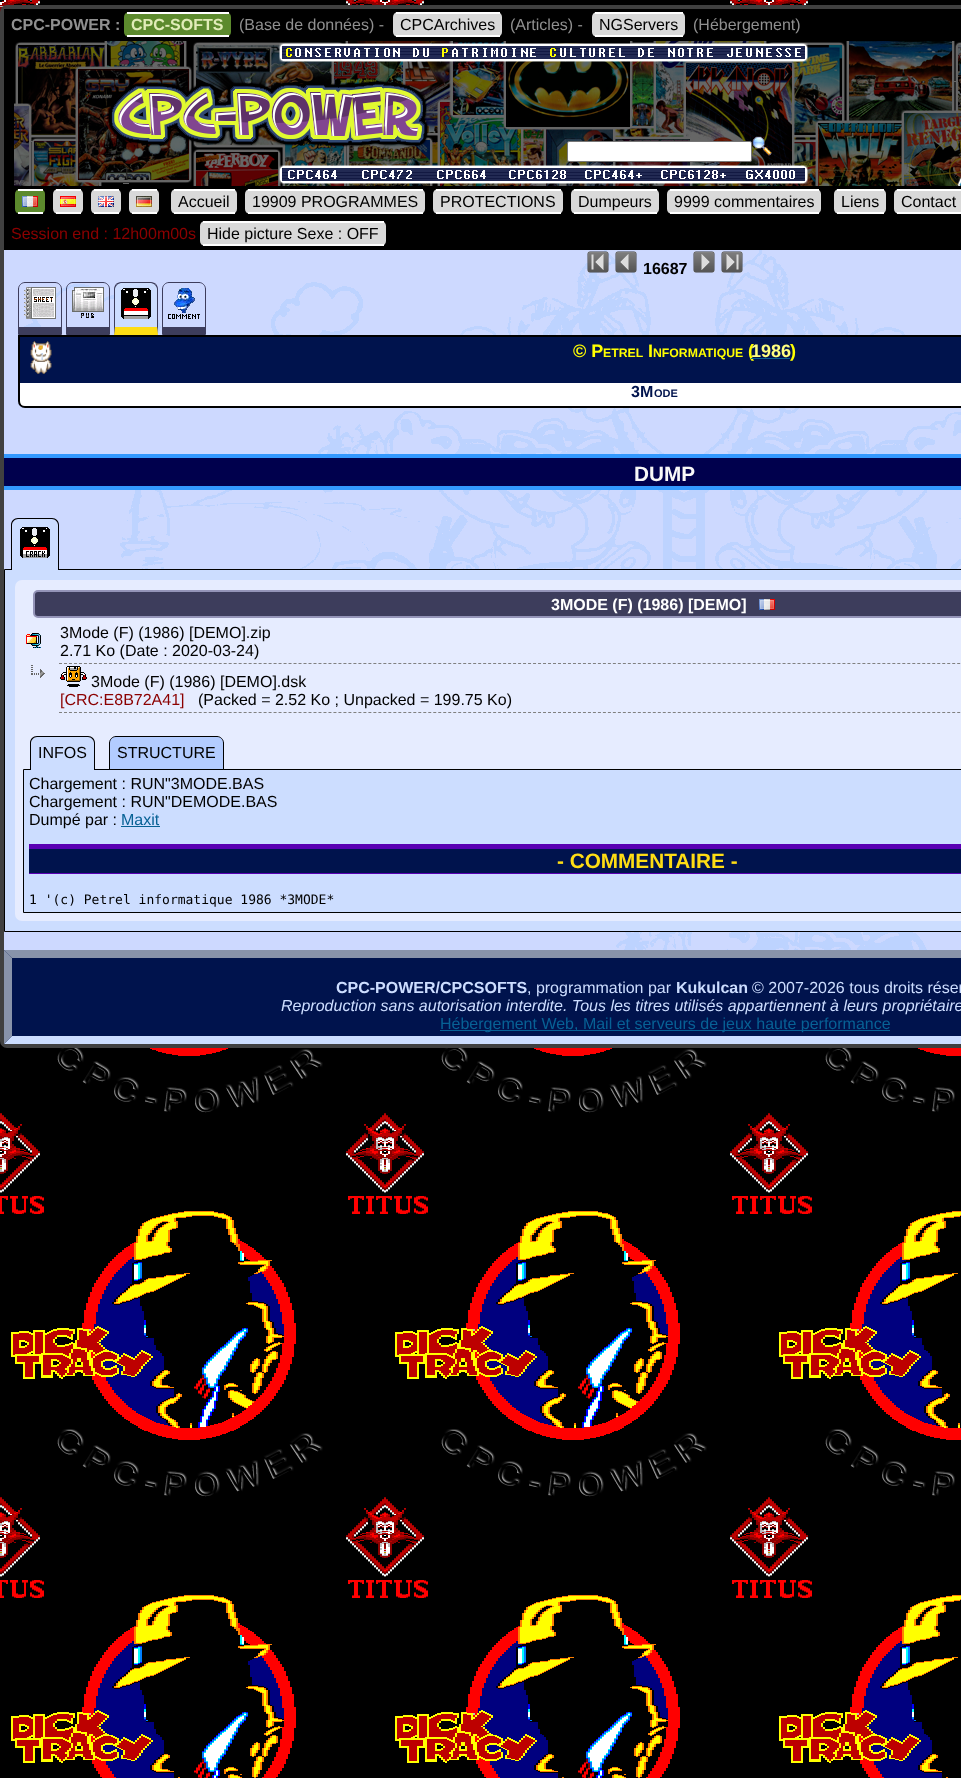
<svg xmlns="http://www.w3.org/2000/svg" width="961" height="1778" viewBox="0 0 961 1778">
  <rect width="100%" height="100%" fill="#fff"/>
  <image x="0" y="0" width="961" height="1778" href="img/1.png"/>
  <rect x="2" y="7" width="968" height="1039" rx="5" fill="#000" stroke="#404040" stroke-width="4"/>
  <path d="M4 9h3v3H4z" fill="#000"/>
  <rect x="124" y="12" width="107" height="25" rx="5" fill="#5c8a2d"/>
  <path d="M127 12h102v2H127z" fill="#fff"/>
  <path d="M127 35h102v2H127z" fill="#fff"/>
  <rect x="393" y="12" width="109" height="25" rx="5" fill="#d9d9d9"/>
  <path d="M396 12h104v2H396z" fill="#fff"/>
  <path d="M396 35h104v2H396z" fill="#fff"/>
  <rect x="592" y="12" width="93" height="25" rx="5" fill="#d9d9d9"/>
  <path d="M595 12h88v2H595z" fill="#fff"/>
  <path d="M595 35h88v2H595z" fill="#fff"/>
  <image x="14" y="41" width="947" height="145" href="img/2.png"/>
  <rect x="567.5" y="141.5" width="184" height="20" rx="1.5" fill="#fff" stroke="#767676"/>
  <image x="752" y="136" width="20" height="20" href="img/3.png"/>
  <rect x="15" y="189" width="30" height="25" rx="5" fill="#5c8a2d"/>
  <path d="M18 189h25v2H18z" fill="#fff"/>
  <rect x="53" y="189" width="30" height="25" rx="5" fill="#d9d9d9"/>
  <path d="M56 189h25v2H56z" fill="#fff"/>
  <rect x="91" y="189" width="30" height="25" rx="5" fill="#d9d9d9"/>
  <path d="M94 189h25v2H94z" fill="#fff"/>
  <rect x="129" y="189" width="30" height="25" rx="5" fill="#d9d9d9"/>
  <path d="M132 189h25v2H132z" fill="#fff"/>
  <image x="22" y="196" width="16" height="11" href="img/4.png"/>
  <image x="60" y="196" width="16" height="11" href="img/5.png"/>
  <image x="98" y="196" width="16" height="11" href="img/6.png"/>
  <image x="136" y="196" width="16" height="11" href="img/7.png"/>
  <rect x="171" y="189" width="66" height="25" rx="5" fill="#d9d9d9"/>
  <path d="M174 189h61v2H174z" fill="#fff"/>
  <path d="M174 212h61v2H174z" fill="#fff"/>
  <rect x="245" y="189" width="180" height="25" rx="5" fill="#d9d9d9"/>
  <path d="M248 189h175v2H248z" fill="#fff"/>
  <path d="M248 212h175v2H248z" fill="#fff"/>
  <rect x="433" y="189" width="130" height="25" rx="5" fill="#d9d9d9"/>
  <path d="M436 189h125v2H436z" fill="#fff"/>
  <path d="M436 212h125v2H436z" fill="#fff"/>
  <rect x="571" y="189" width="88" height="25" rx="5" fill="#d9d9d9"/>
  <path d="M574 189h83v2H574z" fill="#fff"/>
  <path d="M574 212h83v2H574z" fill="#fff"/>
  <rect x="667" y="189" width="154" height="25" rx="5" fill="#d9d9d9"/>
  <path d="M670 189h149v2H670z" fill="#fff"/>
  <path d="M670 212h149v2H670z" fill="#fff"/>
  <rect x="834" y="189" width="52" height="25" rx="5" fill="#d9d9d9"/>
  <path d="M837 189h47v2H837z" fill="#fff"/>
  <path d="M837 212h47v2H837z" fill="#fff"/>
  <rect x="894" y="189" width="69" height="25" rx="5" fill="#d9d9d9"/>
  <path d="M897 189h64v2H897z" fill="#fff"/>
  <path d="M897 212h64v2H897z" fill="#fff"/>
  <path d="M18 212h25v2H18z" fill="#fff"/>
  <path d="M56 212h25v2H56z" fill="#fff"/>
  <path d="M94 212h25v2H94z" fill="#fff"/>
  <path d="M132 212h25v2H132z" fill="#fff"/>
  <rect x="200" y="221" width="186" height="25" rx="5" fill="#d9d9d9"/>
  <path d="M203 221h181v2H203z" fill="#fff"/>
  <path d="M203 244h181v2H203z" fill="#fff"/>
  <path d="M4 250h3v700H4z" fill="#ccd8ff"/>
  <image x="7" y="250" width="954" height="700" href="img/8.png"/>
  <image x="587" y="251" width="22" height="22" href="img/9.png"/>
  <image x="615" y="251" width="22" height="22" href="img/10.png"/>
  <image x="693" y="251" width="22" height="22" href="img/11.png"/>
  <image x="721" y="251" width="22" height="22" href="img/12.png"/>
  <path d="M25 282.5H55C58.5 282.5 61.5 285.5 61.5 289V334.5H18.5V289C18.5 285.5 21.5 282.5 25 282.5Z" fill="none" stroke="#3d3d5c"/>
  <path d="M18 327h44v7H18z" fill="#3d3d5c"/>
  <image x="24" y="287" width="32" height="32" href="img/13.png"/>
  <path d="M73 282.5H103C106.5 282.5 109.5 285.5 109.5 289V334.5H66.5V289C66.5 285.5 69.5 282.5 73 282.5Z" fill="none" stroke="#3d3d5c"/>
  <path d="M66 327h44v7H66z" fill="#3d3d5c"/>
  <image x="72" y="287" width="32" height="31" href="img/14.png"/>
  <path d="M121 283H151C154.5 283 157 285.5 157 289V327H115V289C115 285.5 117.5 283 121 283Z" fill="#cdf"/>
  <path d="M121 282C119 282 117 283 116 284L117 285C118 284 120 283 121 283H151C152 283 154 284 155 285L156 284C155 283 153 282 151 282Z" fill="#3d3d5c"/>
  <path d="M158 335V289C158 287 157 285 156 284L155 285C156 286 157 288 157 289V327Z" fill="#3d3d5c"/>
  <path d="M158 335L157 327H115L114 335Z" fill="#fedd14"/>
  <path d="M114 335L115 327V289C115 288 116 286 117 285L116 284C115 285 114 287 114 289Z" fill="#3d3d5c"/>
  <image x="121" y="288" width="30" height="31" href="img/15.png"/>
  <path d="M169 282.5H199C202.5 282.5 205.5 285.5 205.5 289V334.5H162.5V289C162.5 285.5 165.5 282.5 169 282.5Z" fill="none" stroke="#3d3d5c"/>
  <path d="M162 327h44v7H162z" fill="#3d3d5c"/>
  <image x="168" y="288" width="32" height="31" href="img/16.png"/>
  <path d="M19 336H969V401C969 404.5 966.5 407 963 407H25C21.5 407 19 404.5 19 401Z" fill="#fff" stroke="#000" stroke-width="2"/>
  <path d="M20 337h941v46H20z" fill="#00134d"/>
  <image x="30" y="341" width="22" height="33" href="img/17.png"/>
  <path d="M4 458h957v28H4z" fill="#00004d"/>
  <path d="M4 454h957v4H4z" fill="#39f"/>
  <path d="M4 486h957v4H4z" fill="#39f"/>
  <path d="M4.5 569.5h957v362H4.5z" fill="none" stroke="#000"/>
  <path d="M18 519H52C55.5 519 58 521.5 58 525V570H12V525C12 521.5 14.5 519 18 519Z" fill="#cdf"/>
  <path d="M18 518H52C56 518 59 521 59 525V570H11V525C11 521 14 518 18 518ZM18 519H52C55 519 58 522 58 525V570H12V525C12 522 15 519 18 519Z" fill="#000" fill-rule="evenodd"/>
  <image x="20" y="527" width="30" height="31" href="img/18.png"/>
  <path d="M5 570h956v361H5z" fill="#cdf"/>
  <rect x="15" y="580" width="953" height="341" rx="7" fill="#e6ecff"/>
  <rect x="34" y="591" width="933" height="26" rx="4" fill="#3d3d5c" stroke="#9494b8" stroke-width="2"/>
  <image x="759" y="599" width="16" height="11" href="img/19.png"/>
  <image x="26" y="633" width="15" height="15" href="img/20.png"/>
  <image x="31" y="665" width="14" height="13" href="img/21.png"/>
  <path d="M59 663.5H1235" fill="none" stroke="#808080" stroke-dasharray="3 1.99"/>
  <image x="60" y="666" width="27" height="21" href="img/22.png"/>
  <path d="M59 712.5H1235" fill="none" stroke="#808080" stroke-dasharray="3 1.99"/>
  <path d="M23.5 769.5h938v143H23.5z" fill="none" stroke="#000"/>
  <path d="M37 737H88C91.5 737 94 739.5 94 743V770H31V743C31 739.5 33.5 737 37 737Z" fill="#cdf"/>
  <path d="M37 736H88C92 736 95 739 95 743V770H30V743C30 739 33 736 37 736ZM37 737H88C91 737 94 740 94 743V770H31V743C31 740 34 737 37 737Z" fill="#000" fill-rule="evenodd"/>
  <path d="M116 736.5H217C220.5 736.5 223.5 739.5 223.5 743V769.5H109.5V743C109.5 739.5 112.5 736.5 116 736.5Z" fill="#b3ccff" stroke="#000"/>
  <path d="M24 770h937v142H24z" fill="#cdf"/>
  <path d="M121 826h39v1H121z" fill="#076195"/>
  <path d="M29 849h932v24H29z" fill="#00134d"/>
  <path d="M29 844h932v5H29z" fill="#5900b3"/>
  <path d="M29 873h932v1H29z" fill="#5900b3"/>
  <path d="M4 950h957v94H4z" fill="#00134d"/>
  <path d="M4 950H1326L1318 958H12Z" fill="#8893aa"/>
  <path d="M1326 1044H4L12 1036H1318Z" fill="#cdf"/>
  <path d="M4 1044V950L12 958V1036Z" fill="#8893aa"/>
  <path d="M440 1030h450v1H440z" fill="#076195"/>
  <text x="11" y="30" font-family="Liberation Sans" font-size="16" font-weight="bold" fill="#909090">CPC-POWER :</text>
  <text x="131" y="30" font-family="Liberation Sans" font-size="16" font-weight="bold" fill="#e1ecb9">CPC-SOFTS</text>
  <text x="239" y="30" font-family="Liberation Sans" font-size="16" fill="#909090">(Base de données) -</text>
  <text x="400" y="30" font-family="Liberation Sans" font-size="16" fill="#000">CPCArchives</text>
  <text x="510" y="30" font-family="Liberation Sans" font-size="16" fill="#909090">(Articles) -</text>
  <text x="599" y="30" font-family="Liberation Sans" font-size="16" fill="#000">NGServers</text>
  <text x="693" y="30" font-family="Liberation Sans" font-size="16" fill="#909090">(Hébergement)</text>
  <g font-family="Liberation Sans" font-size="16" fill="#000">
    <text x="178" y="207">Accueil</text>
    <text x="252" y="207">19909 PROGRAMMES</text>
    <text x="440" y="207">PROTECTIONS</text>
    <text x="578" y="207">Dumpeurs</text>
    <text x="674" y="207">9999 commentaires</text>
    <text x="841" y="207">Liens</text>
    <text x="901" y="207">Contact</text>
  </g>
  <text x="11" y="239" font-family="Liberation Sans" font-size="16" fill="#8b0000">Session end : 12h00m00s</text>
  <text x="207" y="239" font-family="Liberation Sans" font-size="16" fill="#000">Hide picture Sexe : OFF</text>
  <text x="643" y="274" font-family="Liberation Sans" font-size="16" font-weight="bold" fill="#000">16687</text>
  <g font-family="Liberation Sans" font-size="18" font-weight="bold" fill="#ff0">
    <text x="573" y="357">© P</text>
    <text x="648" y="357">I</text>
    <text x="748" y="357">(</text>
  </g>
  <g font-family="Liberation Sans" font-size="12.25" font-weight="bold" fill="#ff0">
    <text x="603" y="357">ETREL</text>
    <text x="653" y="357">NFORMATIQUE</text>
  </g>
  <text x="751" y="357" font-family="Liberation Sans" font-size="18" font-weight="bold" fill="#ffff80">1986</text>
  <path d="M751 358h39v1H751z" fill="#076195"/>
  <text x="790" y="357" font-family="Liberation Sans" font-size="18" font-weight="bold" fill="#ff0">)</text>
  <text x="631" y="397" font-family="Liberation Sans" font-size="16" font-weight="bold" fill="#00134d">3M</text>
  <text x="654" y="397" font-family="Liberation Sans" font-size="11" font-weight="bold" fill="#00134d">ODE</text>
  <text x="634" y="481" font-family="Liberation Sans" font-size="20.75" font-weight="bold" fill="#f8f8f8">DUMP</text>
  <text x="551" y="610" font-family="Liberation Sans" font-size="16" font-weight="bold" fill="#fff">3MODE (F) (1986) [DEMO]</text>
  <g font-family="Liberation Sans" font-size="16" fill="#000">
    <text x="60" y="638">3Mode (F) (1986) [DEMO].zip</text>
    <text x="60" y="656">2.71 Ko (Date : 2020-03-24)</text>
    <text x="91" y="687">3Mode (F) (1986) [DEMO].dsk</text>
  </g>
  <text x="60" y="705" font-family="Liberation Sans" font-size="16" fill="#8b0000">[CRC:E8B72A41]</text>
  <g font-family="Liberation Sans" font-size="16" fill="#000">
    <text x="198" y="705">(Packed = 2.52 Ko ; Unpacked = 199.75 Ko)</text>
    <text x="38" y="758">INFOS</text>
    <text x="117" y="758">STRUCTURE</text>
    <text x="29" y="789">Chargement : RUN"3MODE.BAS</text>
    <text x="29" y="807">Chargement : RUN"DEMODE.BAS</text>
    <text x="29" y="825">Dumpé par :</text>
  </g>
  <text x="121" y="825" font-family="Liberation Sans" font-size="16" fill="#076195">Maxit</text>
  <text x="557" y="868" font-family="Liberation Sans" font-size="20.75" font-weight="bold" fill="#fedd14">- COMMENTAIRE -</text>
  <text x="29" y="904" font-family="DejaVu Sans Mono" font-size="13" fill="#000">1 '(c) Petrel informatique 1986 *3MODE*</text>
  <text x="336" y="993" font-family="Liberation Sans" font-size="16" font-weight="bold" fill="#cdf">CPC-POWER/CPCSOFTS</text>
  <text x="527" y="993" font-family="Liberation Sans" font-size="16" fill="#cdf">, programmation par</text>
  <text x="676" y="993" font-family="Liberation Sans" font-size="16" font-weight="bold" fill="#cdf">Kukulcan</text>
  <text x="752" y="993" font-family="Liberation Sans" font-size="16" fill="#cdf">© 2007-2026 tous droits réser</text>
  <text x="281" y="1011" font-family="Liberation Sans" font-size="16" font-style="italic" fill="#cdf">Reproduction sans autorisation interdite. Tous les titres utilisés appartiennent à leurs propriétaire</text>
  <text x="440" y="1029" font-family="Liberation Sans" font-size="16" fill="#076195">Hébergement Web, Mail et serveurs de jeux haute performance</text>
</svg>
